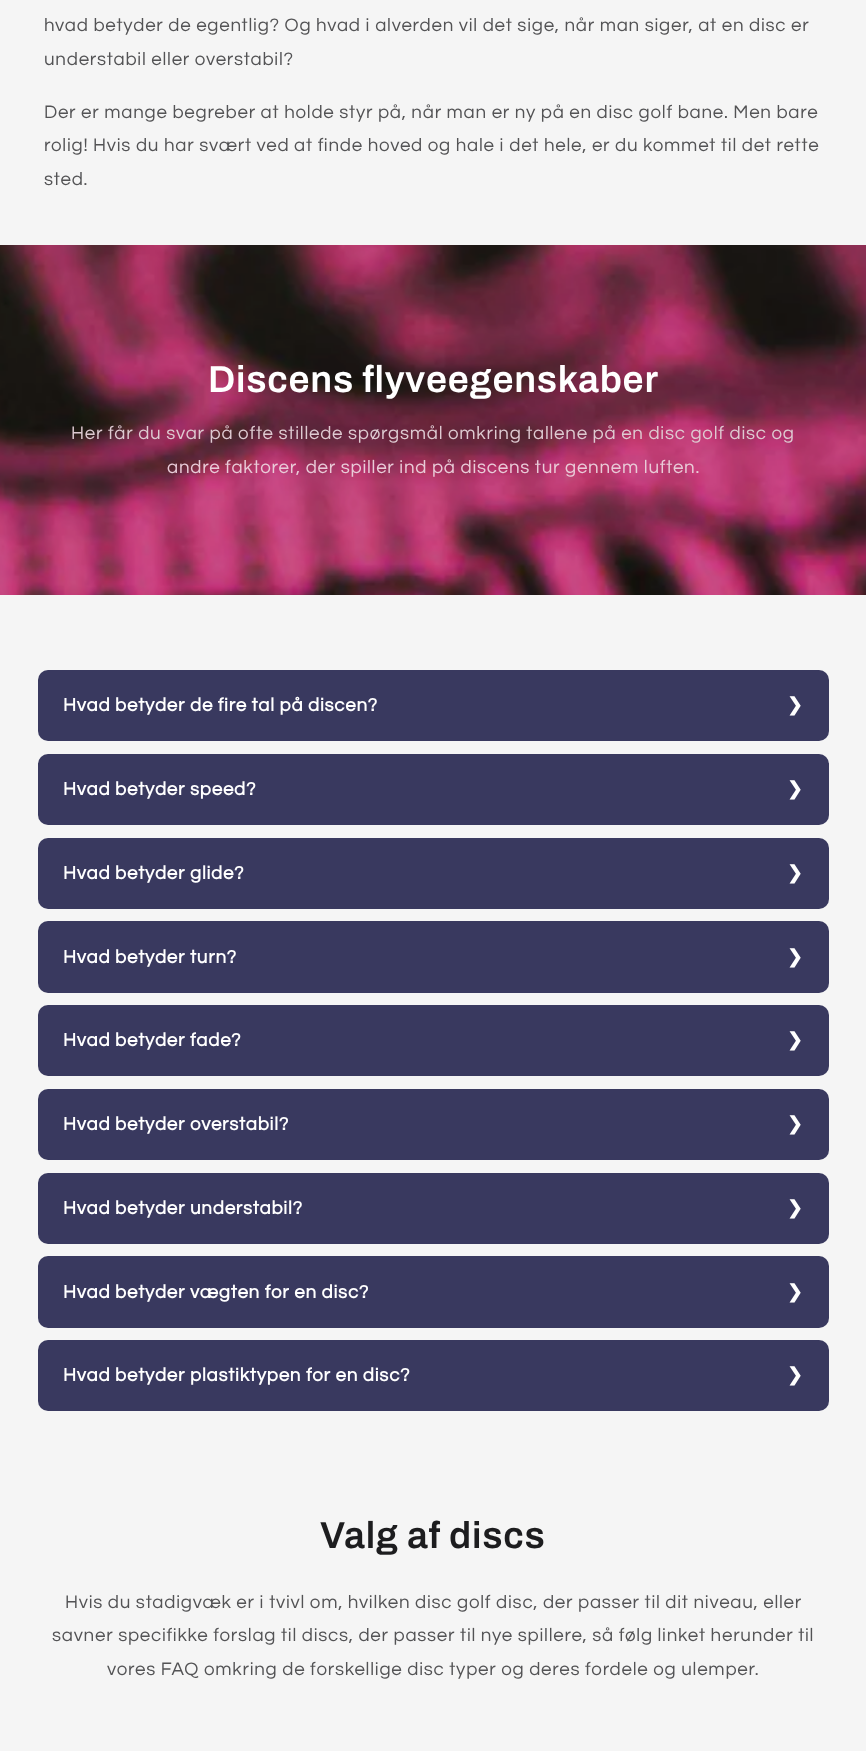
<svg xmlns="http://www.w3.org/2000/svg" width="866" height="1751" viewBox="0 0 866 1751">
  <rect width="100%" height="100%" fill="#f5f5f5"/>
  <image x="0" y="245" width="866" height="350" href="img/1.png"/>
  <rect x="38" y="670" width="791" height="71" rx="10" fill="#39395f"/>
  <rect x="38" y="754" width="791" height="71" rx="10" fill="#39395f"/>
  <rect x="38" y="838" width="791" height="71" rx="10" fill="#39395f"/>
  <rect x="38" y="921" width="791" height="72" rx="10" fill="#39395f"/>
  <rect x="38" y="1005" width="791" height="71" rx="10" fill="#39395f"/>
  <rect x="38" y="1089" width="791" height="71" rx="10" fill="#39395f"/>
  <rect x="38" y="1173" width="791" height="71" rx="10" fill="#39395f"/>
  <rect x="38" y="1256" width="791" height="72" rx="10" fill="#39395f"/>
  <rect x="38" y="1340" width="791" height="71" rx="10" fill="#39395f"/>
  <g font-family="Questrial" font-size="18.75" letter-spacing="0.75" fill="#535355">
    <text x="44" y="31">hvad betyder de egentlig? Og hvad i alverden vil det sige, når man siger, at en disc er</text>
    <text x="44" y="65">understabil eller overstabil?</text>
    <text x="44" y="118">Der er mange begreber at holde styr på, når man er ny på en disc golf bane. Men bare</text>
    <text x="44" y="151">rolig! Hvis du har svært ved at finde hoved og hale i det hele, er du kommet til det rette</text>
    <text x="44" y="185">sted.</text>
  </g>
  <text x="208" y="392" font-family="Archivo" font-size="37.5" font-weight="600" letter-spacing="0.75" fill="#fff">Discens flyveegenskaber</text>
  <text x="71" y="439" font-family="Questrial" font-size="18.75" letter-spacing="0.75" fill="#decad1">Her får du svar på ofte stillede spørgsmål omkring tallene på en disc golf disc og</text>
  <text x="167" y="473" font-family="Questrial" font-size="18.75" letter-spacing="0.75" fill="#e9ccd8">andre faktorer, der spiller ind på discens tur gennem luften.</text>
  <text x="63" y="711" font-family="Questrial" font-size="18.75" font-weight="bold" letter-spacing="0.75" fill="#fff">Hvad betyder de fire tal på discen?</text>
  <text x="787" y="711" font-family="DejaVu Sans" font-size="18.75" font-weight="bold" letter-spacing="0.75" fill="#fff">❯</text>
  <text x="63" y="795" font-family="Questrial" font-size="18.75" font-weight="bold" letter-spacing="0.75" fill="#fff">Hvad betyder speed?</text>
  <text x="787" y="795" font-family="DejaVu Sans" font-size="18.75" font-weight="bold" letter-spacing="0.75" fill="#fff">❯</text>
  <text x="63" y="879" font-family="Questrial" font-size="18.75" font-weight="bold" letter-spacing="0.75" fill="#fff">Hvad betyder glide?</text>
  <text x="787" y="879" font-family="DejaVu Sans" font-size="18.75" font-weight="bold" letter-spacing="0.75" fill="#fff">❯</text>
  <text x="63" y="963" font-family="Questrial" font-size="18.75" font-weight="bold" letter-spacing="0.75" fill="#fff">Hvad betyder turn?</text>
  <text x="787" y="963" font-family="DejaVu Sans" font-size="18.75" font-weight="bold" letter-spacing="0.75" fill="#fff">❯</text>
  <text x="63" y="1046" font-family="Questrial" font-size="18.75" font-weight="bold" letter-spacing="0.75" fill="#fff">Hvad betyder fade?</text>
  <text x="787" y="1046" font-family="DejaVu Sans" font-size="18.75" font-weight="bold" letter-spacing="0.75" fill="#fff">❯</text>
  <text x="63" y="1130" font-family="Questrial" font-size="18.75" font-weight="bold" letter-spacing="0.75" fill="#fff">Hvad betyder overstabil?</text>
  <text x="787" y="1130" font-family="DejaVu Sans" font-size="18.75" font-weight="bold" letter-spacing="0.75" fill="#fff">❯</text>
  <text x="63" y="1214" font-family="Questrial" font-size="18.75" font-weight="bold" letter-spacing="0.75" fill="#fff">Hvad betyder understabil?</text>
  <text x="787" y="1214" font-family="DejaVu Sans" font-size="18.75" font-weight="bold" letter-spacing="0.75" fill="#fff">❯</text>
  <text x="63" y="1298" font-family="Questrial" font-size="18.75" font-weight="bold" letter-spacing="0.75" fill="#fff">Hvad betyder vægten for en disc?</text>
  <text x="787" y="1298" font-family="DejaVu Sans" font-size="18.75" font-weight="bold" letter-spacing="0.75" fill="#fff">❯</text>
  <text x="63" y="1381" font-family="Questrial" font-size="18.75" font-weight="bold" letter-spacing="0.75" fill="#fff">Hvad betyder plastiktypen for en disc?</text>
  <text x="787" y="1381" font-family="DejaVu Sans" font-size="18.75" font-weight="bold" letter-spacing="0.75" fill="#fff">❯</text>
  <text x="320" y="1548" font-family="Archivo" font-size="37.5" font-weight="600" letter-spacing="0.75" fill="#1d1d1f">Valg af discs</text>
  <g font-family="Questrial" font-size="18.75" letter-spacing="0.75" fill="#535355">
    <text x="65" y="1608">Hvis du stadigvæk er i tvivl om, hvilken disc golf disc, der passer til dit niveau, eller</text>
    <text x="52" y="1641">savner specifikke forslag til discs, der passer til nye spillere, så følg linket herunder til</text>
    <text x="107" y="1675">vores FAQ omkring de forskellige disc typer og deres fordele og ulemper.</text>
  </g>
</svg>
